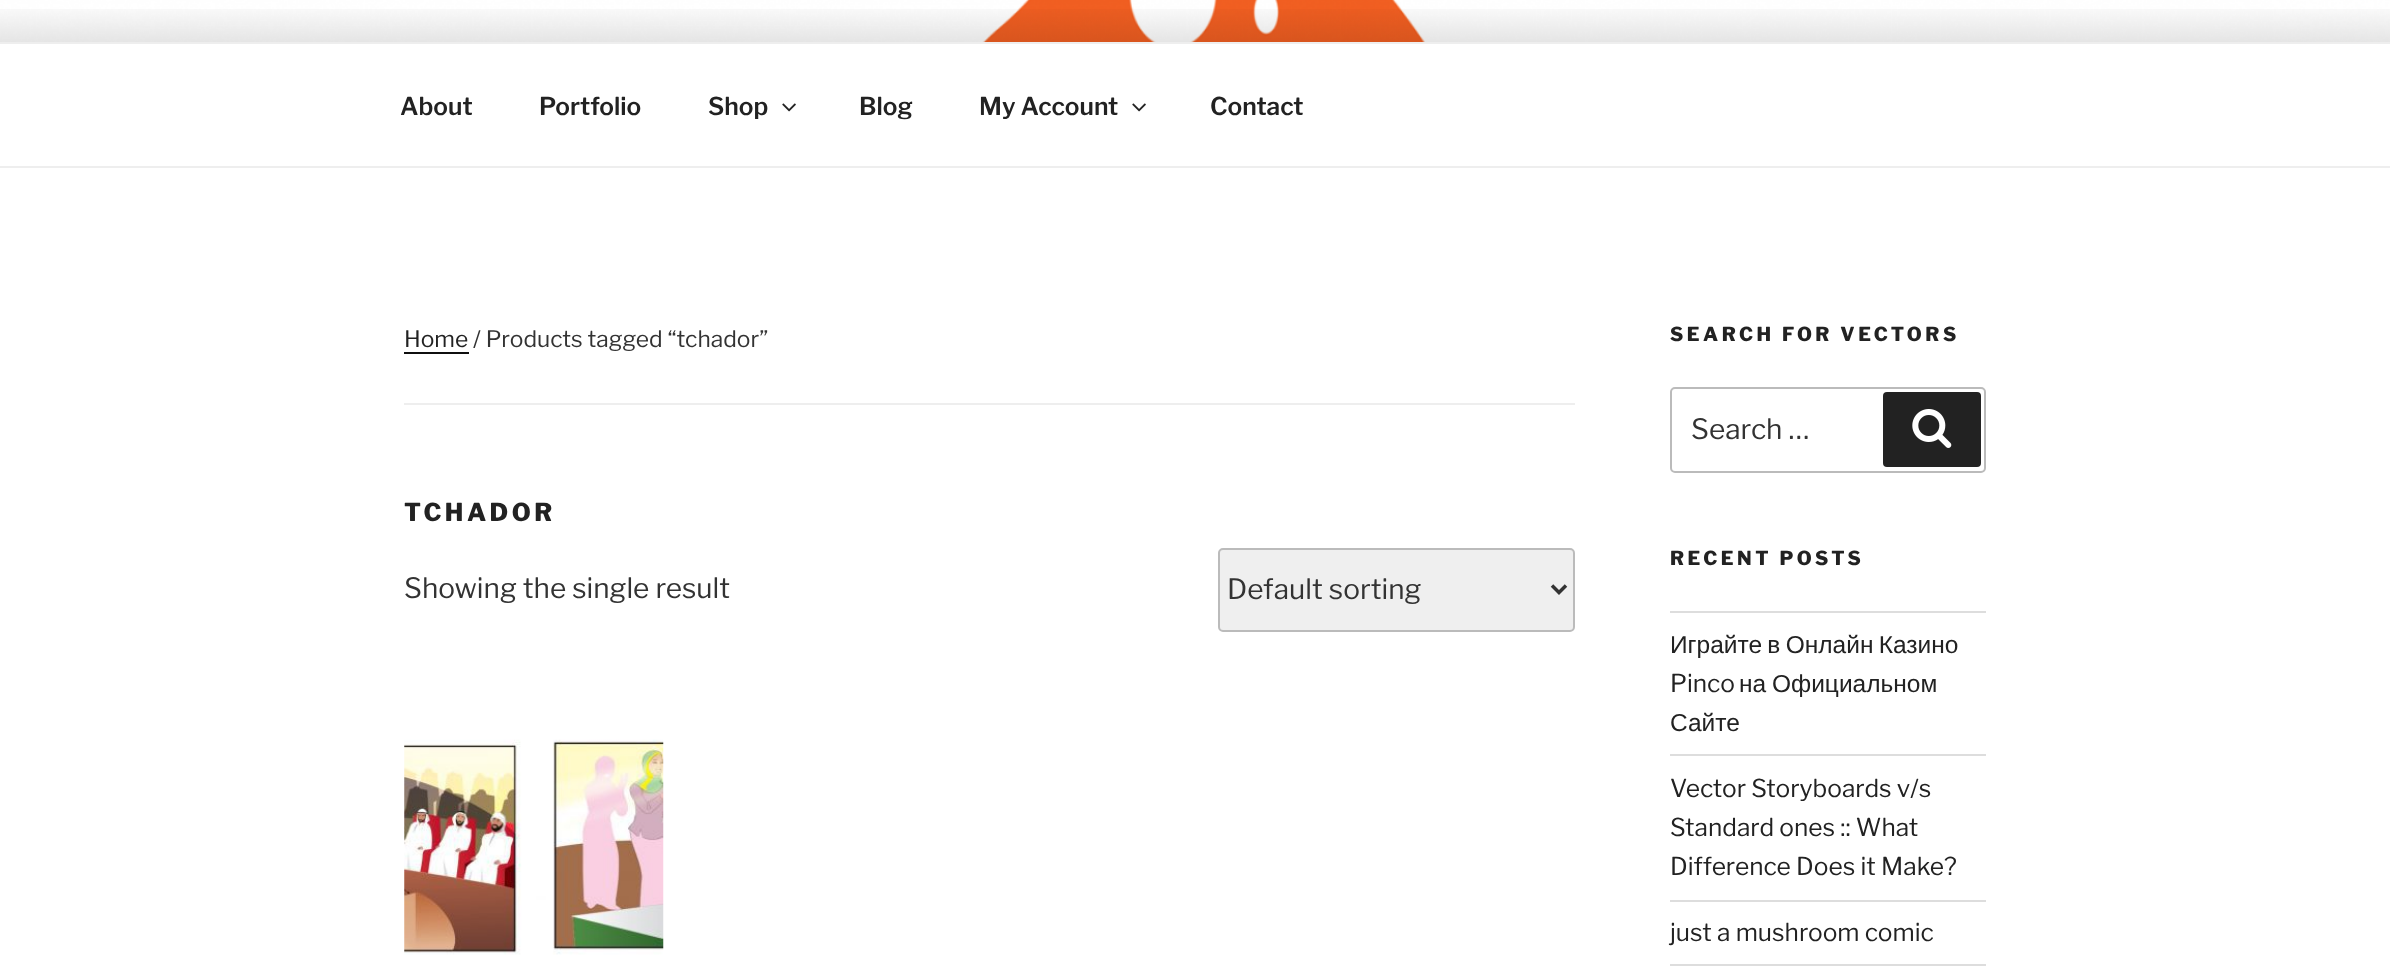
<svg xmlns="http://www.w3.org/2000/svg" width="2390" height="979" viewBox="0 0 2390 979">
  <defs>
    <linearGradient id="g1" gradientUnits="userSpaceOnUse" x1="1195" y1="0" x2="1195" y2="168"><stop offset="0" stop-color="#000" stop-opacity="0"/><stop offset="0.75" stop-color="#000" stop-opacity="0.3"/><stop offset="1" stop-color="#000" stop-opacity="0.3"/></linearGradient>
  </defs>
  <rect width="100%" height="100%" fill="#fff"/>
  <image x="0" y="0" width="2390" height="42" href="img/1.png"/>
  <path d="M0 9h2390v33H0z" fill="url(#g1)"/>
  <path d="M0 42h2390v2H0z" fill="#eee"/>
  <path d="M0 166h2390v2H0z" fill="#eee"/>
  <image x="782" y="103" width="14" height="9" href="img/2.png"/>
  <image x="1132" y="103" width="14" height="9" href="img/2.png"/>
  <path d="M404 403h1171v2H404z" fill="#eee"/>
  <path d="M404 326V354H469V352H404Z" fill="#0f0f0f"/>
  <rect x="1219" y="549" width="355" height="82" rx="4" fill="#efefef" stroke="#bbb" stroke-width="2"/>
  <path d="M1552 585.5L1559 592.5L1566 585.5" fill="none" stroke="#333" stroke-width="3.5"/>
  <image x="404" y="739" width="260" height="216" href="img/3.png"/>
  <rect x="1671" y="388" width="314" height="84" rx="4" fill="none" stroke="#bbb" stroke-width="2"/>
  <rect x="1883" y="392" width="98" height="75" rx="4" fill="#222"/>
  <image x="1912" y="409" width="40" height="39" href="img/4.png"/>
  <path d="M1670 611h316v2H1670z" fill="#ddd"/>
  <path d="M1670 754h316v2H1670z" fill="#ddd"/>
  <path d="M1670 900h316v2H1670z" fill="#ddd"/>
  <path d="M1670 964h316v2H1670z" fill="#ddd"/>
  <g font-family="'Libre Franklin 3'" font-size="24.5" font-weight="100" fill="#222">
    <text x="400" y="115">About</text>
    <text x="539" y="115">Portfolio</text>
    <text x="708" y="115">Shop</text>
    <text x="859" y="115">Blog</text>
    <text x="979" y="115">My Account</text>
    <text x="1210" y="115">Contact</text>
  </g>
  <text x="404" y="347" font-family="Libre Franklin" font-size="22.75" font-weight="100" fill="#222">Home</text>
  <text x="473" y="347" font-family="Libre Franklin" font-size="22.75" font-weight="100" fill="#333">/ Products tagged “tchador”</text>
  <text x="404" y="521" font-family="'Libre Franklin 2'" font-size="24.5" font-weight="100" letter-spacing="3.5" fill="#222">TCHADOR</text>
  <g font-family="Libre Franklin" font-size="28" font-weight="100" fill="#333">
    <text x="404" y="598">Showing the single result</text>
    <text x="1227" y="599">Default sorting</text>
  </g>
  <text x="1670" y="341" font-family="'Libre Franklin 2'" font-size="19.25" font-weight="100" letter-spacing="3.5" fill="#222">SEARCH FOR VECTORS</text>
  <text x="1691" y="439" font-family="Libre Franklin" font-size="28" font-weight="100" fill="#333">Search …</text>
  <text x="1670" y="565" font-family="'Libre Franklin 2'" font-size="19.25" font-weight="100" letter-spacing="3.5" fill="#222">RECENT POSTS</text>
  <text x="1670" y="653" word-spacing="-1.5" font-family="Liberation Sans" font-size="24.5" fill="#222">Играйте в Онлайн Казино</text>
  <text x="1670" y="692" font-family="Libre Franklin" font-size="24.5" font-weight="100" fill="#222">Pinco</text>
  <g font-family="Liberation Sans" font-size="24.5" fill="#222">
    <text x="1739" y="692" word-spacing="-1">на Официальном</text>
    <text x="1670" y="731">Сайте</text>
  </g>
  <g font-family="Libre Franklin" font-size="24.5" font-weight="100" fill="#222">
    <text x="1670" y="797">Vector Storyboards v/s</text>
    <text x="1670" y="836">Standard ones :: What</text>
    <text x="1670" y="875">Difference Does it Make?</text>
    <text x="1670" y="941">just a mushroom comic</text>
  </g>
</svg>
